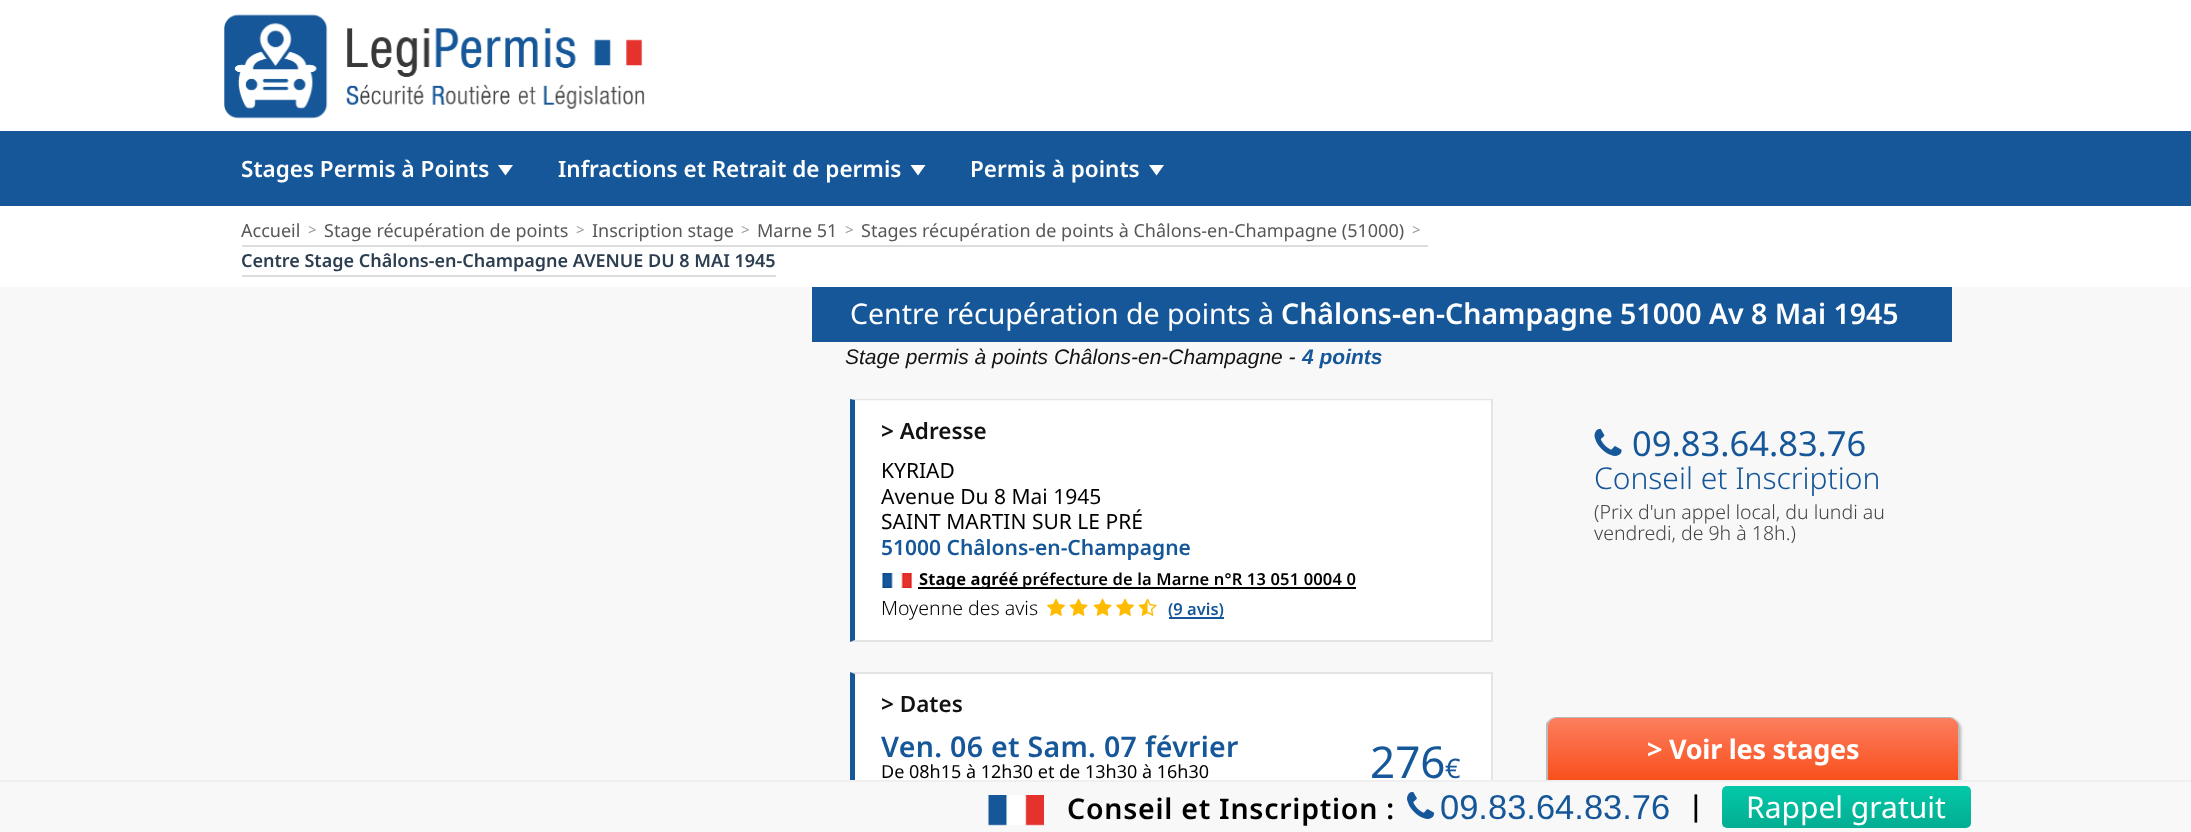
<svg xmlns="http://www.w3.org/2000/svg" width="2191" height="832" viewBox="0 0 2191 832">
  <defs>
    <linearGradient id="g1" gradientUnits="userSpaceOnUse" x1="1753" y1="719" x2="1753" y2="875"><stop offset="0" stop-color="#fc7d5d"/><stop offset="0.4" stop-color="#f94f1b"/><stop offset="1" stop-color="#f94f1b"/></linearGradient>
    <linearGradient id="g2" gradientUnits="userSpaceOnUse" x1="1847" y1="828" x2="1847" y2="786"><stop offset="0" stop-color="#03ad91"/><stop offset="1" stop-color="#03c9a9"/></linearGradient>
  </defs>
  <rect width="100%" height="100%" fill="#fff"/>
  <image x="224" y="14" width="421" height="105" href="img/1.png"/>
  <path d="M0 131h2191v75H0z" fill="#165799"/>
  <path d="M498 165H513L505.5 175.5Z" fill="#fff"/>
  <path d="M910.5 165H925.5L918 175.5Z" fill="#fff"/>
  <path d="M1149 165H1164L1156.5 175.5Z" fill="#fff"/>
  <path d="M242 245h1186v2H242z" fill="#ddd"/>
  <path d="M242 275h534v2H242z" fill="#ddd"/>
  <path d="M0 287h2191v493H0z" fill="#f8f8f8"/>
  <path d="M812 287h1140v55H812z" fill="#165799"/>
  <path d="M855 401h636v239H855z" fill="#fff"/>
  <path d="M850 399H1492L1491 400H855Z" fill="#e4e4e4"/>
  <path d="M1491 399h2v243H1491z" fill="#e4e4e4"/>
  <path d="M1492 642H850L855 640H1491Z" fill="#e4e4e4"/>
  <path d="M850 642V399L855 400V640Z" fill="#165799"/>
  <image x="882" y="573" width="30" height="15" href="img/2.png"/>
  <path d="M918 587h438v2H918z" fill="#000"/>
  <image x="1047" y="598" width="19" height="18" href="img/3.png"/>
  <image x="1069" y="598" width="19" height="18" href="img/4.png"/>
  <image x="1093" y="598" width="19" height="18" href="img/4.png"/>
  <image x="1116" y="598" width="19" height="18" href="img/3.png"/>
  <image x="1138" y="598" width="19" height="18" href="img/5.png"/>
  <path d="M1169 617h55v2H1169z" fill="#165799"/>
  <image x="1594" y="428" width="28" height="28" href="img/6.png"/>
  <path d="M855 674h636v106H855z" fill="#fff"/>
  <path d="M850 672H1492L1491 674H855Z" fill="#e4e4e4"/>
  <path d="M1491 672h2v108H1491z" fill="#e4e4e4"/>
  <path d="M850 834V672L855 674V832Z" fill="#165799"/>
  <rect x="1548" y="720" width="413" height="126" rx="9" fill="#b3b3b3" filter="blur(1.5px)"/>
  <path d="M1556 718H1950C1954 718 1958 722 1958 726V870C1958 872 1954 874 1950 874H1556C1551 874 1548 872 1548 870V726C1548 722 1551 718 1556 718Z" fill="url(#g1)"/>
  <path d="M1556 717C1554 717 1551 718 1549 720L1550 721C1551 719 1553 718 1556 718H1950C1952 718 1954 719 1956 720C1955 718 1952 717 1950 717Z" fill="#bbb"/>
  <path d="M1959 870V726C1959 724 1958 721 1956 720C1957 722 1958 723 1958 725V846V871L1957 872L1958 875C1958 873 1959 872 1959 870Z" fill="#bbb"/>
  <path d="M1546 723L1549 720L1550 721C1549 722 1548 724 1548 725V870L1549 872L1548 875L1546 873Z" fill="#bbb"/>
  <path d="M0 782h2191v50H0z" fill="#f8f8f8"/>
  <path d="M0 780h2191v2H0z" fill="#efefef"/>
  <image x="988" y="795" width="56" height="31" href="img/7.png"/>
  <image x="1407" y="791" width="28" height="28" href="img/8.png"/>
  <rect x="1722" y="786" width="249" height="42" rx="5" fill="url(#g2)"/>
  <g font-family="Noto Sans" font-size="22.5" font-weight="600" fill="#fff">
    <text x="241" y="177">Stages Permis à Points</text>
    <text x="558" y="177">Infractions et Retrait de permis</text>
    <text x="970" y="177">Permis à points</text>
  </g>
  <text x="241" y="237" font-family="Noto Sans" font-size="18" fill="#575757">Accueil</text>
  <text x="308" y="235" font-family="Noto Sans" font-size="15" fill="#999">&gt;</text>
  <text x="324" y="237" font-family="Noto Sans" font-size="18" fill="#575757">Stage récupération de points</text>
  <text x="576" y="235" font-family="Noto Sans" font-size="15" fill="#999">&gt;</text>
  <text x="592" y="237" font-family="Noto Sans" font-size="18" fill="#575757">Inscription stage</text>
  <text x="741" y="235" font-family="Noto Sans" font-size="15" fill="#999">&gt;</text>
  <text x="757" y="237" font-family="Noto Sans" font-size="18" fill="#575757">Marne 51</text>
  <text x="845" y="235" font-family="Noto Sans" font-size="15" fill="#999">&gt;</text>
  <text x="861" y="237" font-family="Noto Sans" font-size="18" fill="#575757">Stages récupération de points à Châlons-en-Champagne (51000)</text>
  <text x="1412" y="235" font-family="Noto Sans" font-size="15" fill="#999">&gt;</text>
  <text x="241" y="267" font-family="Noto Sans" font-size="18" font-weight="600" fill="#2c3e50">Centre Stage Châlons-en-Champagne AVENUE DU 8 MAI 1945</text>
  <text x="850" y="324" font-family="Noto Sans" font-size="28.5" fill="#fff">Centre récupération de points à</text>
  <text x="1281" y="324" font-family="Noto Sans" font-size="28.5" font-weight="600" fill="#fff">Châlons-en-Champagne 51000 Av 8 Mai 1945</text>
  <text x="845" y="364" font-family="Liberation Sans" font-size="21" font-style="italic" fill="#121214">Stage permis à points Châlons-en-Champagne -</text>
  <text x="1302" y="364" font-family="Liberation Sans" font-size="21" font-weight="bold" font-style="italic" fill="#165799">4 points</text>
  <text x="881" y="439" font-family="Noto Sans" font-size="22.5" font-weight="600" fill="#121214">&gt; Adresse</text>
  <g font-family="Noto Sans" font-size="21" fill="#000">
    <text x="881" y="478">KYRIAD</text>
    <text x="881" y="504">Avenue Du 8 Mai 1945</text>
    <text x="881" y="529">SAINT MARTIN SUR LE PRÉ</text>
  </g>
  <text x="881" y="555" font-family="Noto Sans" font-size="21" font-weight="600" fill="#165799">51000 Châlons-en-Champagne</text>
  <text x="919" y="585" font-family="Noto Sans" font-size="16.5" font-weight="bold" letter-spacing="0.15" fill="#000">Stage agréé</text>
  <text x="1022" y="585" font-family="Noto Sans" font-size="16.5" font-weight="600" letter-spacing="0.15" fill="#000">préfecture de la Marne n°R 13 051 0004 0</text>
  <text x="881" y="615" font-family="Noto Sans" font-size="19.5" font-weight="300" fill="#000">Moyenne des avis</text>
  <text x="1168" y="615" font-family="Noto Sans" font-size="16.5" font-weight="600" fill="#165799">(9 avis)</text>
  <text x="1632" y="456" font-family="Noto Sans" font-size="34.5" fill="#165799">09.83.64.83.76</text>
  <text x="1594" y="489" font-family="Noto Sans" font-size="30" font-weight="300" fill="#165799">Conseil et Inscription</text>
  <g font-family="Noto Sans" font-size="19.5" font-weight="300" fill="#444">
    <text x="1594" y="519">(Prix d'un appel local, du lundi au</text>
    <text x="1594" y="540">vendredi, de 9h à 18h.)</text>
  </g>
  <text x="881" y="712" font-family="Noto Sans" font-size="22.5" font-weight="600" fill="#121214">&gt; Dates</text>
  <text x="881" y="757" font-family="Noto Sans" font-size="28.5" font-weight="600" letter-spacing="0.3" fill="#165799">Ven. 06 et Sam. 07 février</text>
  <text x="881" y="778" font-family="Noto Sans" font-size="18" fill="#000">De 08h15 à 12h30 et de 13h30 à 16h30</text>
  <text x="1370" y="778" font-family="Noto Sans" font-size="44" fill="#165799">276</text>
  <text x="1445" y="778" font-family="Noto Sans" font-size="27" fill="#165799">€</text>
  <text x="1647" y="759" font-family="Noto Sans" font-size="27" font-weight="bold" letter-spacing="-0.25" fill="#fff">&gt; Voir les stages</text>
  <text x="1067" y="819" font-family="Noto Sans" font-size="28.5" font-weight="600" letter-spacing="0.75" fill="#000">Conseil et Inscription :</text>
  <text x="1440" y="819" font-family="Liberation Sans" font-size="34.5" fill="#165799">09.83.64.83.76</text>
  <text x="1688" y="816" font-family="Noto Sans" font-size="28.5" font-weight="600" letter-spacing="0.75" fill="#000">|</text>
  <text x="1746" y="818" font-family="Noto Sans" font-size="30" fill="#fff">Rappel gratuit</text>
</svg>
